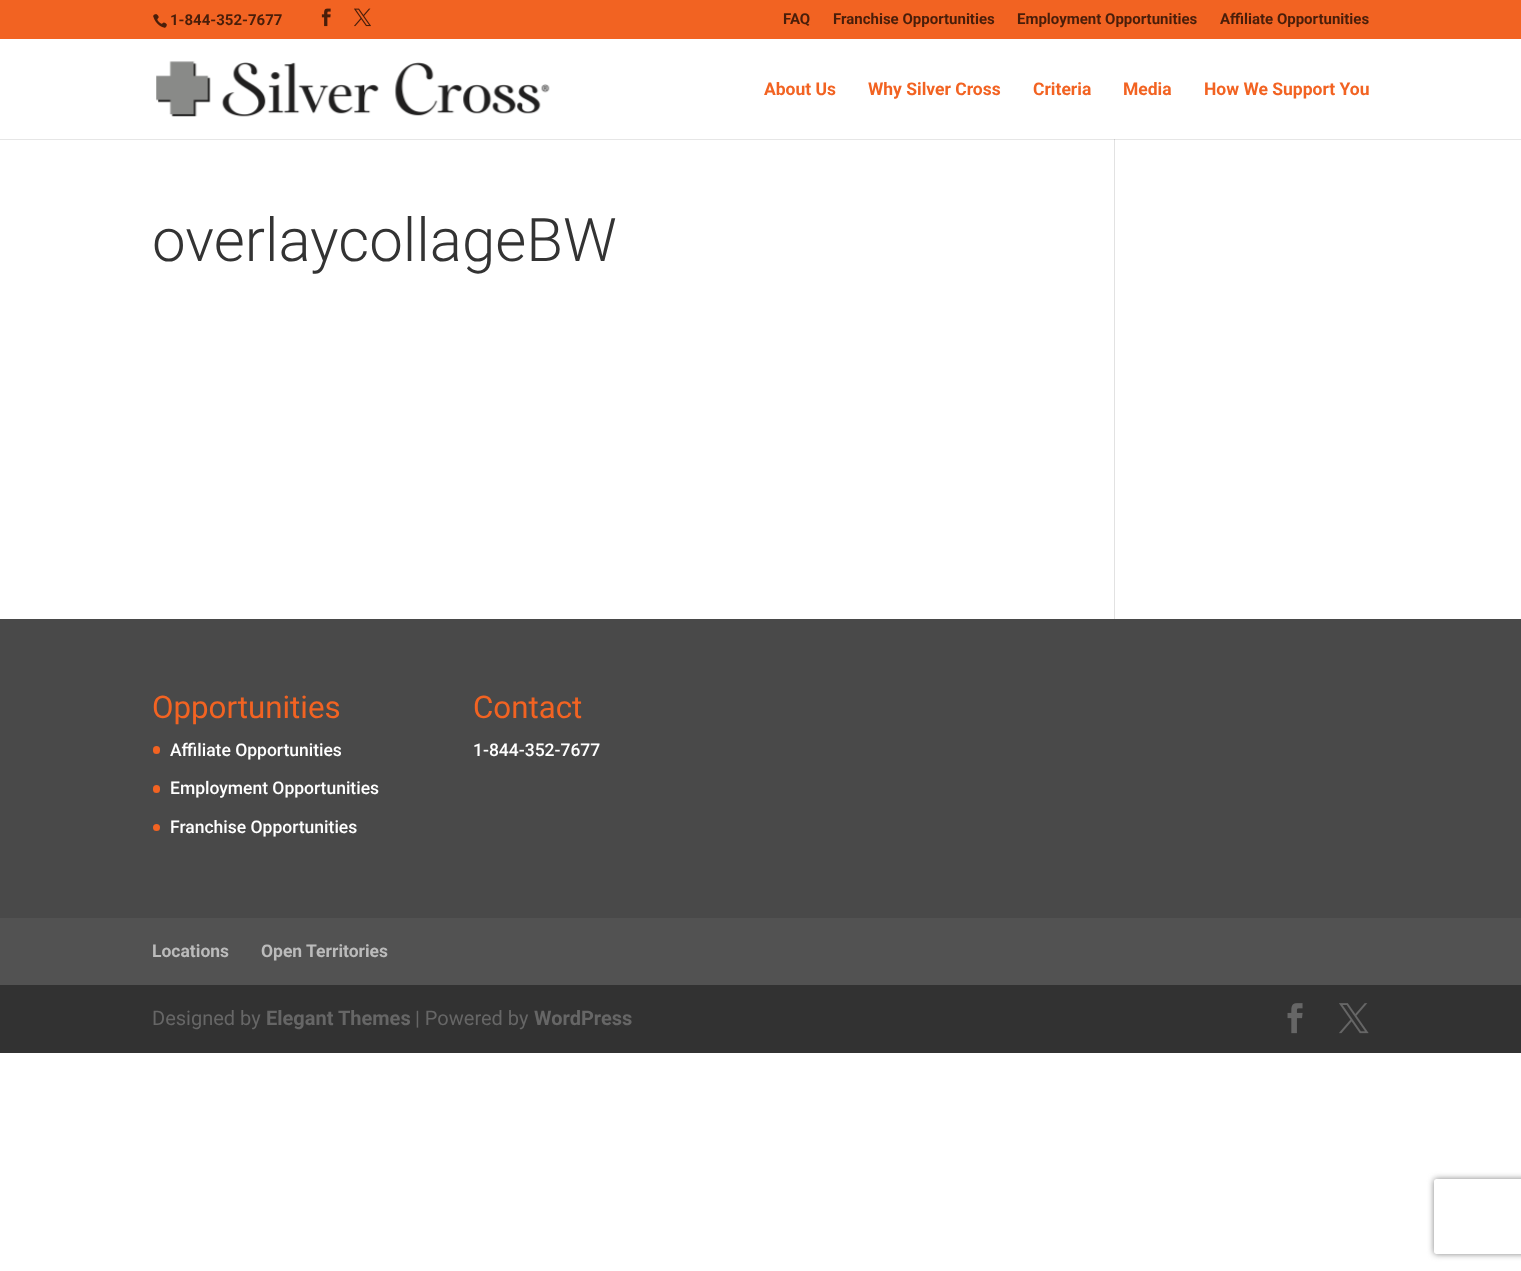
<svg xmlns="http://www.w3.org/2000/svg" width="1521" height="1271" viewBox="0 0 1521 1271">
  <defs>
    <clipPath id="clip1"><path d="M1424 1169H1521V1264H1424ZM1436.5 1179H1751.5C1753 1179 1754 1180 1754 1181.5V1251.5C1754 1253 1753 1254 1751.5 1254H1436.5C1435 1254 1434 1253 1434 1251.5V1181.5C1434 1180 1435 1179 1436.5 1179Z" clip-rule="evenodd"/></clipPath>
  </defs>
  <rect width="100%" height="100%" fill="#fff"/>
  <path d="M0 139h1521v1H0z" fill="#e6e6e6"/>
  <path d="M0 0h1521v39H0z" fill="#f26322"/>
  <image x="153" y="14" width="14" height="14" href="img/1.png"/>
  <image x="321" y="8" width="10" height="19" href="img/2.png"/>
  <image x="354" y="8" width="17" height="19" href="img/3.png"/>
  <image x="156" y="61" width="394" height="56" href="img/4.png"/>
  <path d="M1114 139h1v480H1114z" fill="#e2e2e2"/>
  <path d="M1114 139h1v1H1114z" fill="#cbcbcb"/>
  <path d="M0 619h1521v299H0z" fill="#494949"/>
  <rect x="153" y="746" width="7" height="8" rx="3.5" fill="#f26322"/>
  <rect x="153" y="785" width="7" height="8" rx="3.5" fill="#f26322"/>
  <circle cx="156.5" cy="827.5" r="3.5" fill="#f26322"/>
  <path d="M0 918h1521v67H0z" fill="#525252"/>
  <path d="M0 985h1521v68H0z" fill="#323232"/>
  <image x="1287" y="1003" width="16" height="31" href="img/5.png"/>
  <image x="1339" y="1003" width="30" height="31" href="img/6.png"/>
  <g clip-path="url(#clip1)">
    <rect x="1434" y="1179" width="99" height="75" rx="2.5" fill="#808080" filter="blur(3px)"/>
  </g>
  <g font-family="Roboto" font-size="15" font-weight="bold" fill="#491e0a">
    <text x="170" y="25">1-844-352-7677</text>
    <text x="783" y="24">FAQ</text>
    <text x="833" y="24">Franchise Opportunities</text>
    <text x="1017" y="24">Employment Opportunities</text>
    <text x="1220" y="24">Affiliate Opportunities</text>
  </g>
  <g font-family="Roboto" font-size="17.5" font-weight="bold" fill="#f26322">
    <text x="764" y="95">About Us</text>
    <text x="868" y="95">Why Silver Cross</text>
    <text x="1033" y="95">Criteria</text>
    <text x="1123" y="95">Media</text>
    <text x="1204" y="95">How We Support You</text>
  </g>
  <text x="152" y="261" font-family="Roboto" font-size="60" font-weight="300" fill="#333">overlaycollageBW</text>
  <text x="152" y="718" font-family="Roboto" font-size="31.25" fill="#f26322">Opportunities</text>
  <g font-family="Roboto" font-size="17.5" font-weight="500" fill="#fff">
    <text x="170" y="756">Affiliate Opportunities</text>
    <text x="170" y="794">Employment Opportunities</text>
    <text x="170" y="833">Franchise Opportunities</text>
  </g>
  <text x="473" y="718" font-family="Roboto" font-size="31.25" fill="#f26322">Contact</text>
  <text x="473" y="756" font-family="Roboto" font-size="17.5" font-weight="500" fill="#fff">1-844-352-7677</text>
  <g font-family="Roboto" font-size="17.5" font-weight="bold" fill="#bbb">
    <text x="152" y="957">Locations</text>
    <text x="261" y="957">Open Territories</text>
  </g>
  <text x="152" y="1025" font-family="Roboto" font-size="20" fill="#666">Designed by</text>
  <text x="266" y="1025" font-family="Roboto" font-size="20" font-weight="bold" fill="#666">Elegant Themes</text>
  <text x="415" y="1025" font-family="Roboto" font-size="20" fill="#666">| Powered by</text>
  <text x="534" y="1025" font-family="Roboto" font-size="20" font-weight="bold" fill="#666">WordPress</text>
</svg>
